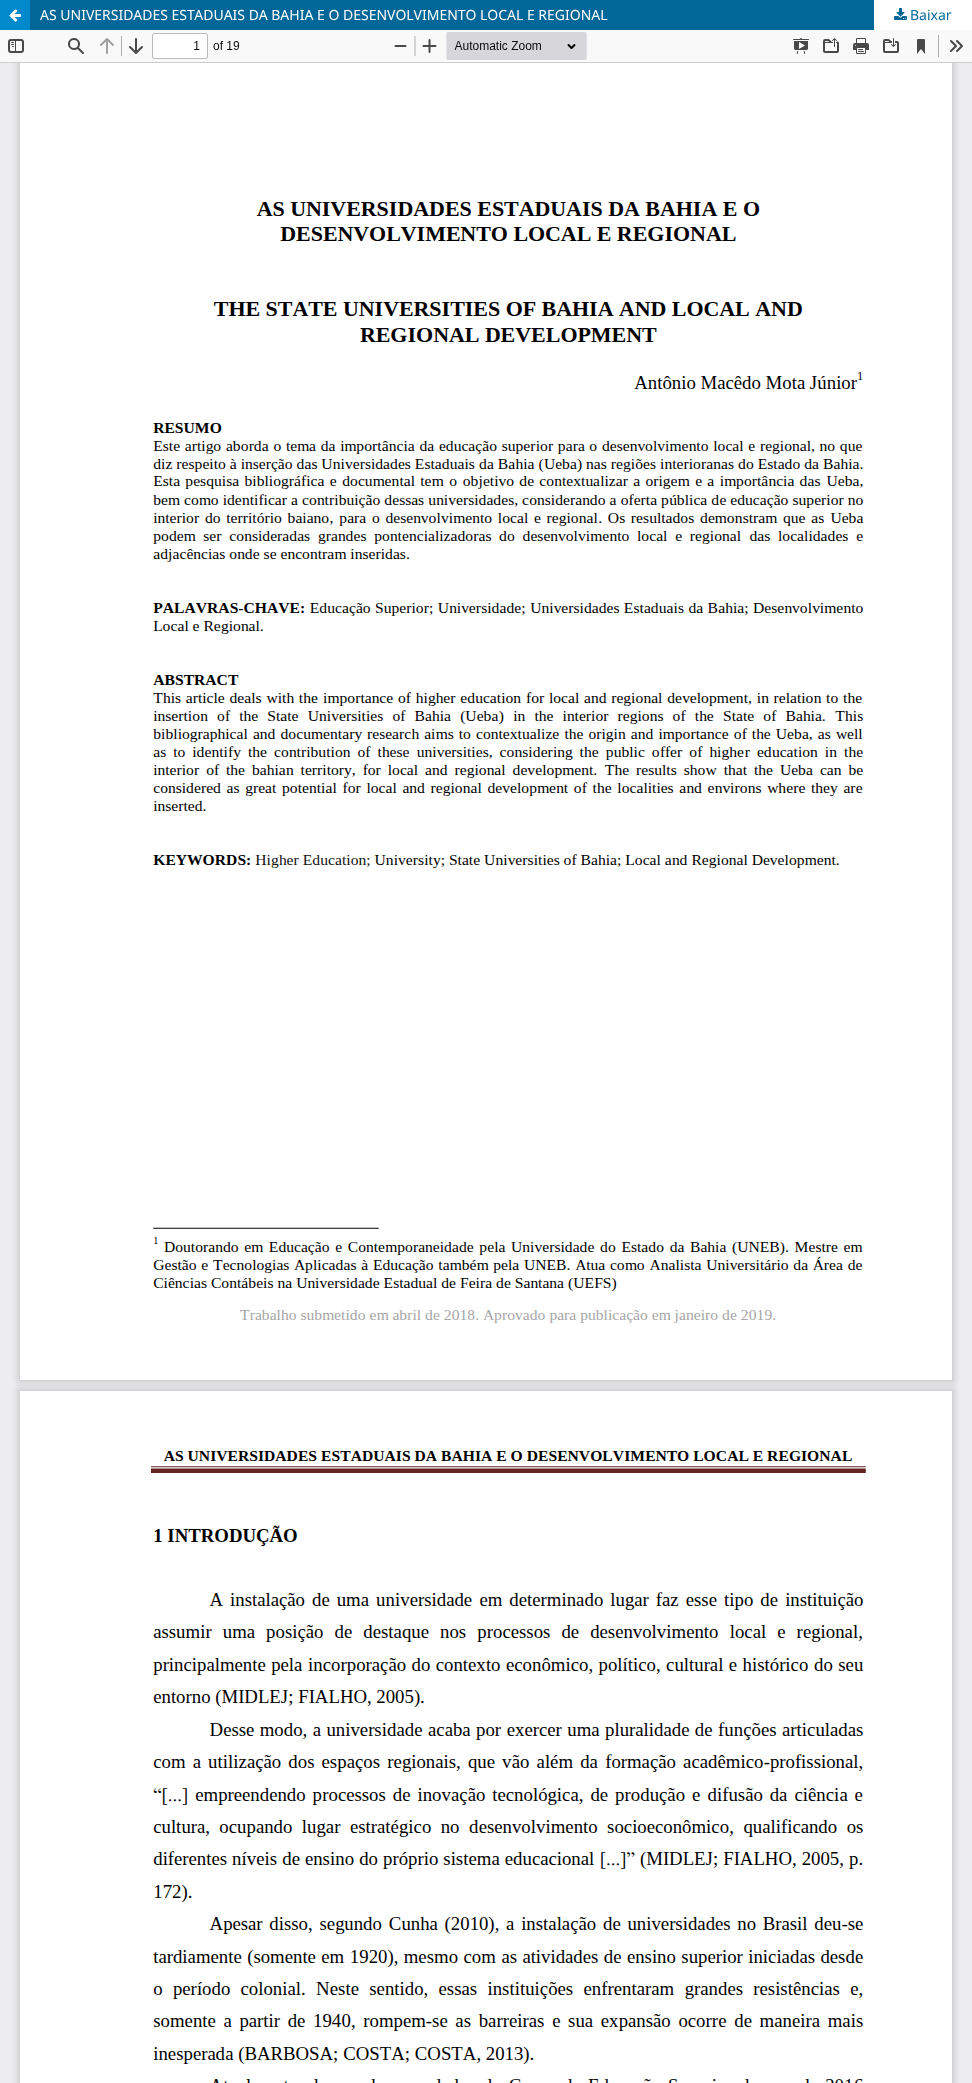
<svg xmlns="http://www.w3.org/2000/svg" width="972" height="2083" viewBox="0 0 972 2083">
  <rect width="100%" height="100%" fill="#fff"/>
  <path d="M30 0h844v30H30z" fill="#006798"/>
  <path d="M0 0h30v30H0z" fill="#008acb"/>
  <image x="9" y="9" width="12" height="13" href="img/1.png"/>
  <image x="894" y="8" width="13" height="12" href="img/2.png"/>
  <image x="0" y="30" width="972" height="2053" href="img/3.png"/>
  <text x="40" y="20" font-family="Noto Sans" font-size="14" fill="#fff">AS UNIVERSIDADES ESTADUAIS DA BAHIA E O DESENVOLVIMENTO LOCAL E REGIONAL</text>
  <text x="910" y="20" font-family="Noto Sans" font-size="14" fill="#006798">Baixar</text>
</svg>
